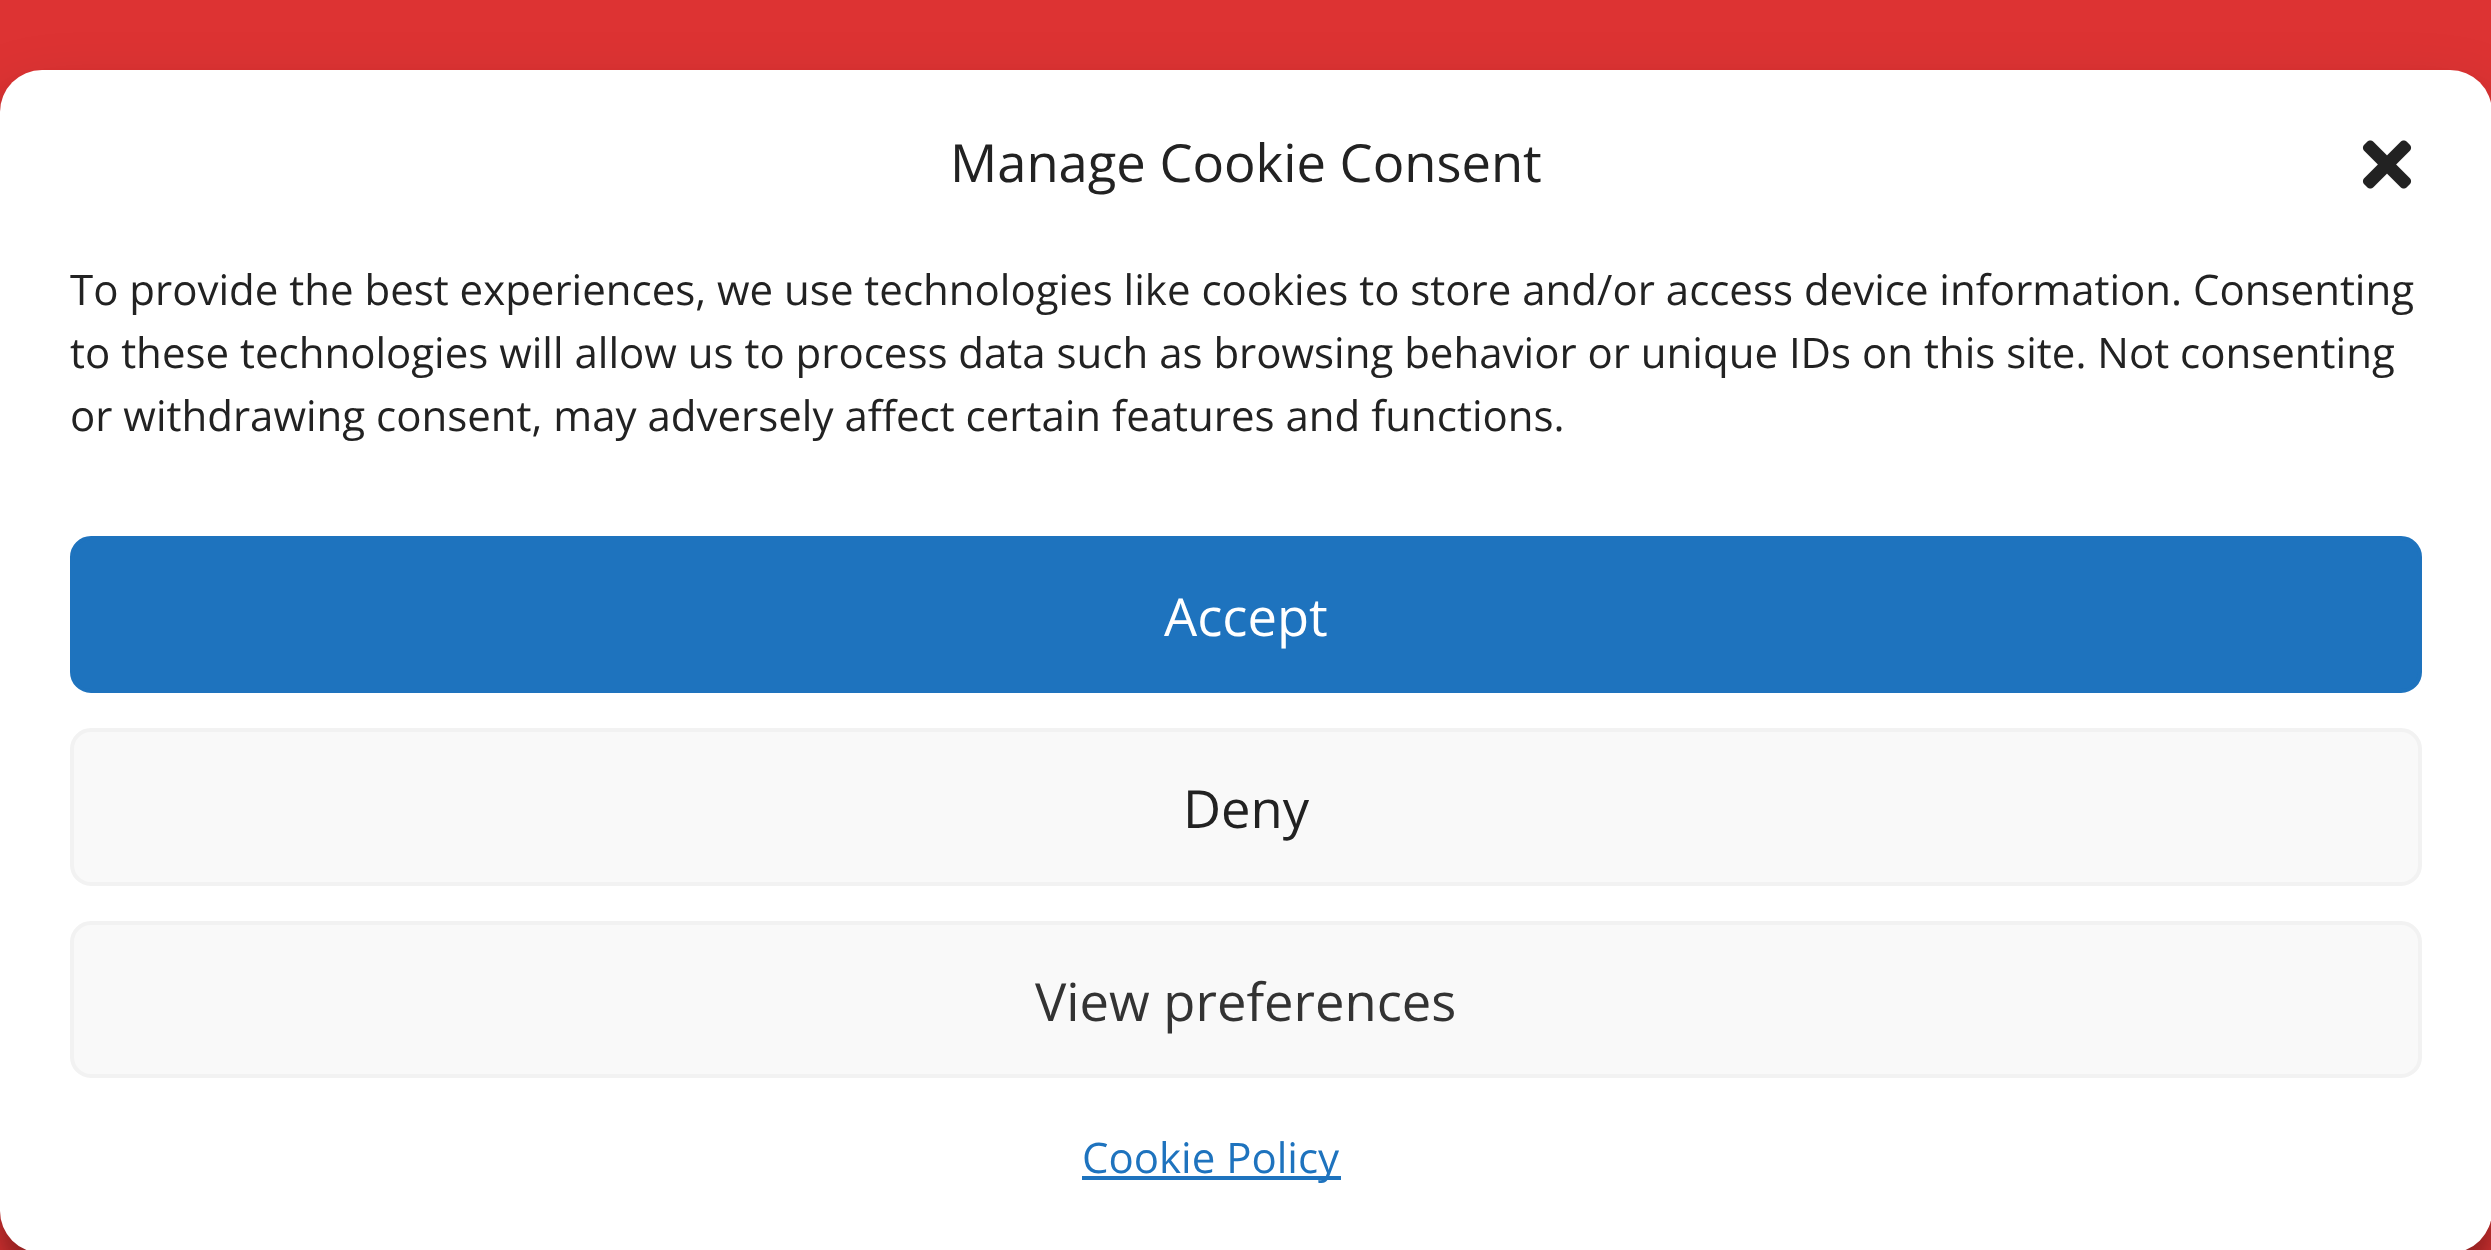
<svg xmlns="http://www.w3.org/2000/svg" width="2491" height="1250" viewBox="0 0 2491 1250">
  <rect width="100%" height="100%" fill="#d33"/>
  <rect y="91" width="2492" height="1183" rx="42" fill="#0000003b" filter="blur(10.5px)"/>
  <rect y="105" width="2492" height="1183" rx="42" fill="#00000030" filter="blur(35px)"/>
  <rect y="70" width="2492" height="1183" rx="42" fill="#fff"/>
  <image x="2362" y="140" width="50" height="49" href="img/1.png"/>
  <rect x="72" y="538" width="2348" height="153" rx="19" fill="#1e73be" stroke="#1e73be" stroke-width="4"/>
  <rect x="72" y="730" width="2348" height="154" rx="19" fill="#f9f9f9" stroke="#f2f2f2" stroke-width="4"/>
  <rect x="72" y="923" width="2348" height="153" rx="19" fill="#f9f9f9" stroke="#f2f2f2" stroke-width="4"/>
  <path d="M1082 1176h259v4H1082z" fill="#1e73be"/>
  <text x="950" y="182" font-family="Open Sans" font-size="52.5" fill="#222">Manage Cookie Consent</text>
  <g font-family="Open Sans" font-size="42" fill="#222">
    <text x="70" y="305">To provide the best experiences, we use technologies like cookies to store and/or access device information. Consenting</text>
    <text x="70" y="368">to these technologies will allow us to process data such as browsing behavior or unique IDs on this site. Not consenting</text>
    <text x="70" y="431">or withdrawing consent, may adversely affect certain features and functions.</text>
  </g>
  <text x="1164" y="636" font-family="Open Sans" font-size="52.5" fill="#fff">Accept</text>
  <text x="1183" y="828" font-family="Open Sans" font-size="52.5" fill="#222">Deny</text>
  <text x="1035" y="1021" font-family="Open Sans" font-size="52.5" fill="#333">View preferences</text>
  <text x="1082" y="1173" font-family="Open Sans" font-size="42" fill="#1e73be">Cookie Policy</text>
</svg>
